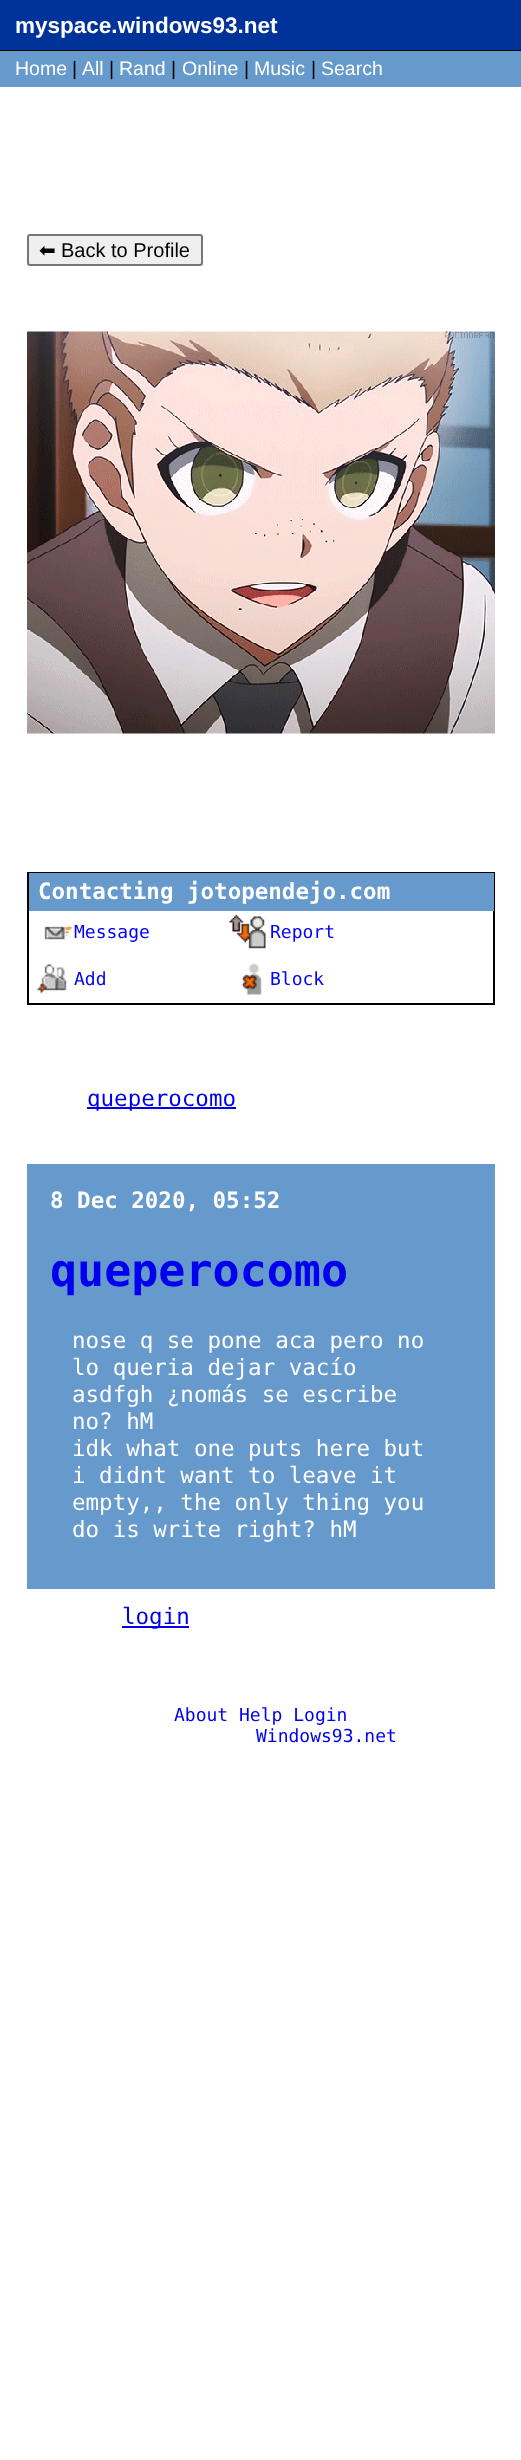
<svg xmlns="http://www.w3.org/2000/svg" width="521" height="2460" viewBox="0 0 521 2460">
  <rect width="100%" height="100%" fill="#fff"/>
  <path d="M0 0h521v50H0z" fill="#039"/>
  <path d="M0 50h521v1H0z" fill="#000"/>
  <path d="M0 51h521v36H0z" fill="#69c"/>
  <rect x="28" y="235" width="174" height="30" rx="2" fill="#efefef" stroke="#767676" stroke-width="2"/>
  <image x="27" y="331" width="468" height="403" href="img/1.png"/>
  <path d="M28 873h466v131H28z" fill="none" stroke="#000" stroke-width="2"/>
  <path d="M29 873h465v38H29z" fill="#69c"/>
  <image x="44" y="926" width="29" height="14" href="img/2.png"/>
  <image x="229" y="914" width="37" height="35" href="img/3.png"/>
  <image x="37" y="964" width="30" height="30" href="img/4.png"/>
  <image x="241" y="963" width="21" height="32" href="img/5.png"/>
  <path d="M87 1107h149v2H87z" fill="#00e"/>
  <path d="M27 1164h468v425H27z" fill="#69c"/>
  <path d="M122 1626h67v2H122z" fill="#00e"/>
  <text x="15" y="33" font-family="Liberation Sans" font-size="22.5" font-weight="bold" fill="#fff">myspace.windows93.net</text>
  <text x="15" y="75" font-family="Liberation Sans" font-size="19.5" fill="#fff">Home</text>
  <text x="72" y="75" font-family="Liberation Sans" font-size="19.5" fill="#000">|</text>
  <text x="82" y="75" font-family="Liberation Sans" font-size="19.5" fill="#fff">All</text>
  <text x="109" y="75" font-family="Liberation Sans" font-size="19.5" fill="#000">|</text>
  <text x="119" y="75" font-family="Liberation Sans" font-size="19.5" fill="#fff">Rand</text>
  <text x="171" y="75" font-family="Liberation Sans" font-size="19.5" fill="#000">|</text>
  <text x="182" y="75" font-family="Liberation Sans" font-size="19.5" fill="#fff">Online</text>
  <text x="244" y="75" font-family="Liberation Sans" font-size="19.5" fill="#000">|</text>
  <text x="254" y="75" font-family="Liberation Sans" font-size="19.5" fill="#fff">Music</text>
  <text x="311" y="75" font-family="Liberation Sans" font-size="19.5" fill="#000">|</text>
  <text x="321" y="75" font-family="Liberation Sans" font-size="19.5" fill="#fff">Search</text>
  <text x="39" y="257" font-family="DejaVu Sans" font-size="20" fill="#000">⬅</text>
  <text x="61" y="257" font-family="Liberation Sans" font-size="20" fill="#000">Back to Profile</text>
  <text x="38" y="899" font-family="DejaVu Sans Mono" font-size="22.5" font-weight="bold" fill="#fff">Contacting jotopendejo.com</text>
  <g font-family="DejaVu Sans Mono" font-size="18" fill="#00f">
    <text x="74" y="938">Message</text>
    <text x="270" y="938">Report</text>
    <text x="74" y="985">Add</text>
    <text x="270" y="985">Block</text>
  </g>
  <text x="87" y="1106" font-family="DejaVu Sans Mono" font-size="22.5" fill="#00e">queperocomo</text>
  <text x="50" y="1208" font-family="DejaVu Sans Mono" font-size="22.5" font-weight="bold" fill="#fff">8 Dec 2020, 05:52</text>
  <text x="50" y="1286" font-family="DejaVu Sans Mono" font-size="45" font-weight="bold" fill="#00e">queperocomo</text>
  <g font-family="DejaVu Sans Mono" font-size="22.5" fill="#fff">
    <text x="72" y="1348">nose q se pone aca pero no</text>
    <text x="72" y="1375">lo queria dejar vacío</text>
    <text x="72" y="1402">asdfgh ¿nomás se escribe</text>
    <text x="72" y="1429">no? hM</text>
    <text x="72" y="1456">idk what one puts here but</text>
    <text x="72" y="1483">i didnt want to leave it</text>
    <text x="72" y="1510">empty,, the only thing you</text>
    <text x="72" y="1537">do is write right? hM</text>
  </g>
  <text x="122" y="1624" font-family="DejaVu Sans Mono" font-size="22.5" fill="#00e">login</text>
  <g font-family="DejaVu Sans Mono" font-size="18" fill="#00e">
    <text x="174" y="1721">About Help Login</text>
    <text x="256" y="1742">Windows93.net</text>
  </g>
</svg>
